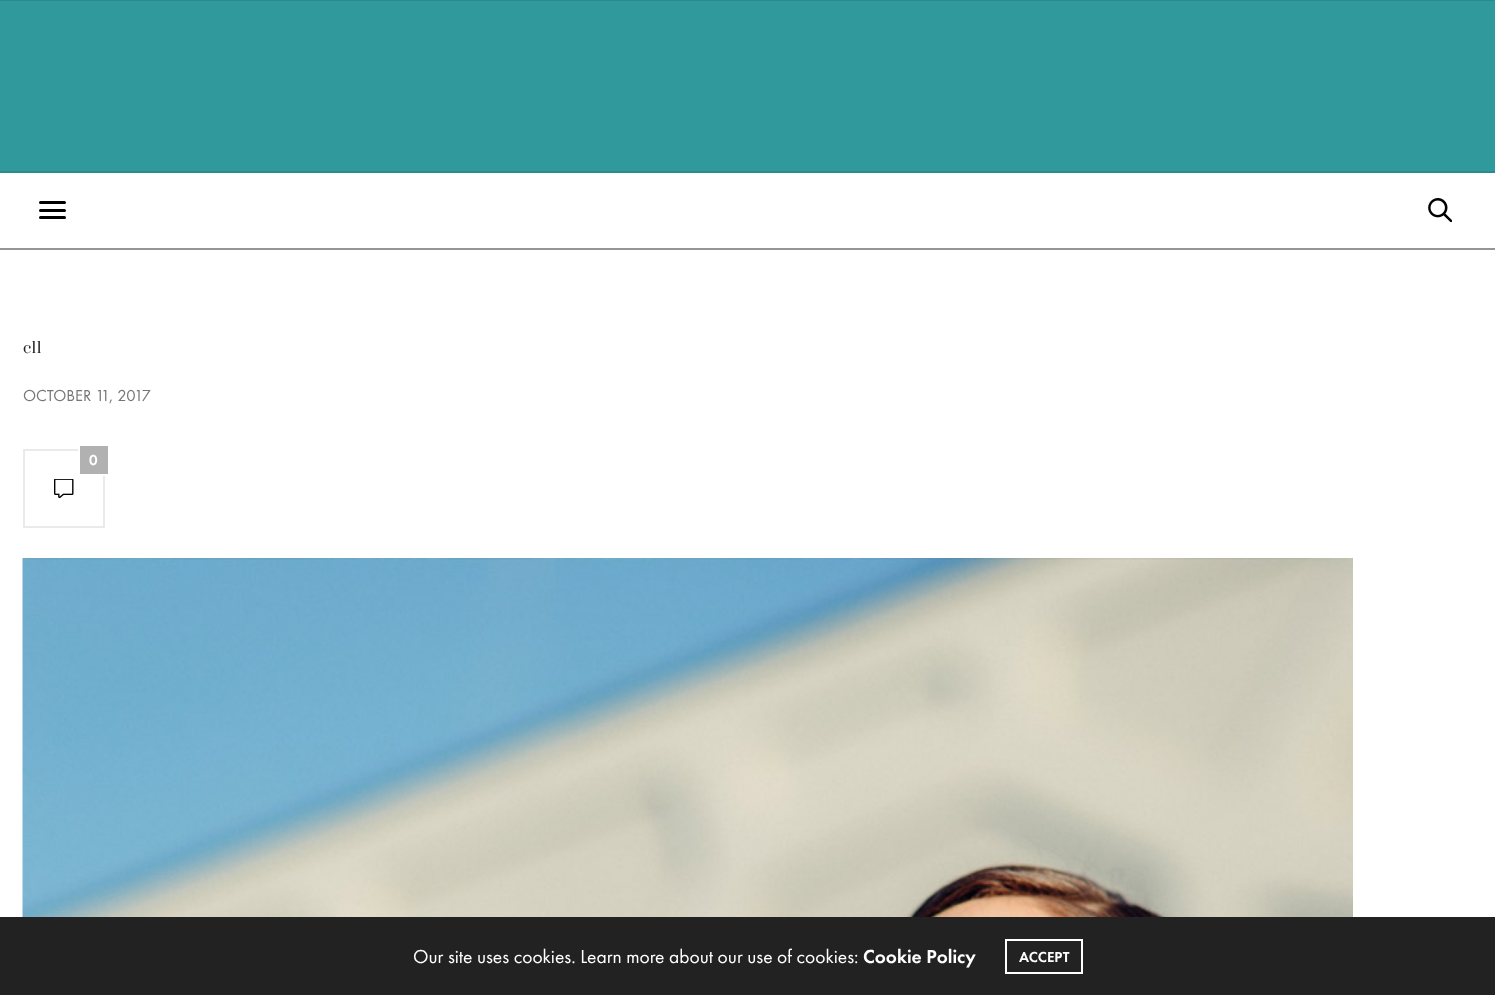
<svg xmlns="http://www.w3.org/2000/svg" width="1495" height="995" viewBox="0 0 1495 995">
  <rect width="100%" height="100%" fill="#fff"/>
  <path d="M0 0h1495v1H0z" fill="#2b8a8c"/>
  <path d="M0 1h1495v170H0z" fill="#30999b"/>
  <path d="M0 171h1495v2H0z" fill="#2b8a8c"/>
  <path d="M0 248h1495v2H0z" fill="#959595"/>
  <rect x="39" y="201" width="27" height="3" rx="1.5" fill="#000"/>
  <rect x="39" y="209" width="27" height="3" rx="1.5" fill="#000"/>
  <rect x="39" y="216" width="27" height="3" rx="1.5" fill="#000"/>
  <image x="1428" y="198" width="24" height="24" href="img/1.png"/>
  <path d="M24 450h80v77H24z" fill="none" stroke="#eaeaea" stroke-width="2"/>
  <path d="M80 446h28v28H80z" fill="#b1b1b1"/>
  <path d="M103 474h5v2H103z" fill="#fff"/>
  <path d="M78 446h2v5H78z" fill="#fff"/>
  <image x="54" y="479" width="20" height="19" href="img/2.png"/>
  <image x="22" y="558" width="1331" height="359" href="img/3.png"/>
  <path d="M0 917h1495v78H0z" fill="#222"/>
  <path d="M1006 940h76v33H1006z" fill="none" stroke="#fff" stroke-width="2"/>
  <text x="23" y="353" font-family="Prata" font-size="15" fill="#222">c11</text>
  <text x="23" y="401" font-family="Futura PT" font-size="16.5" fill="#767676">OCTOBER 11, 2017</text>
  <text x="89" y="465" font-family="Futura PT" font-size="15" font-weight="500" fill="#fff">0</text>
  <text x="413" y="963" font-family="Futura PT" font-size="19.5" fill="#fff">Our site uses cookies. Learn more about our use of cookies:</text>
  <text x="863" y="963" font-family="Futura PT" font-size="19.5" font-weight="500" fill="#fff">Cookie Policy</text>
  <text x="1019" y="962" font-family="Futura PT" font-size="15" font-weight="500" fill="#fff">ACCEPT</text>
</svg>
